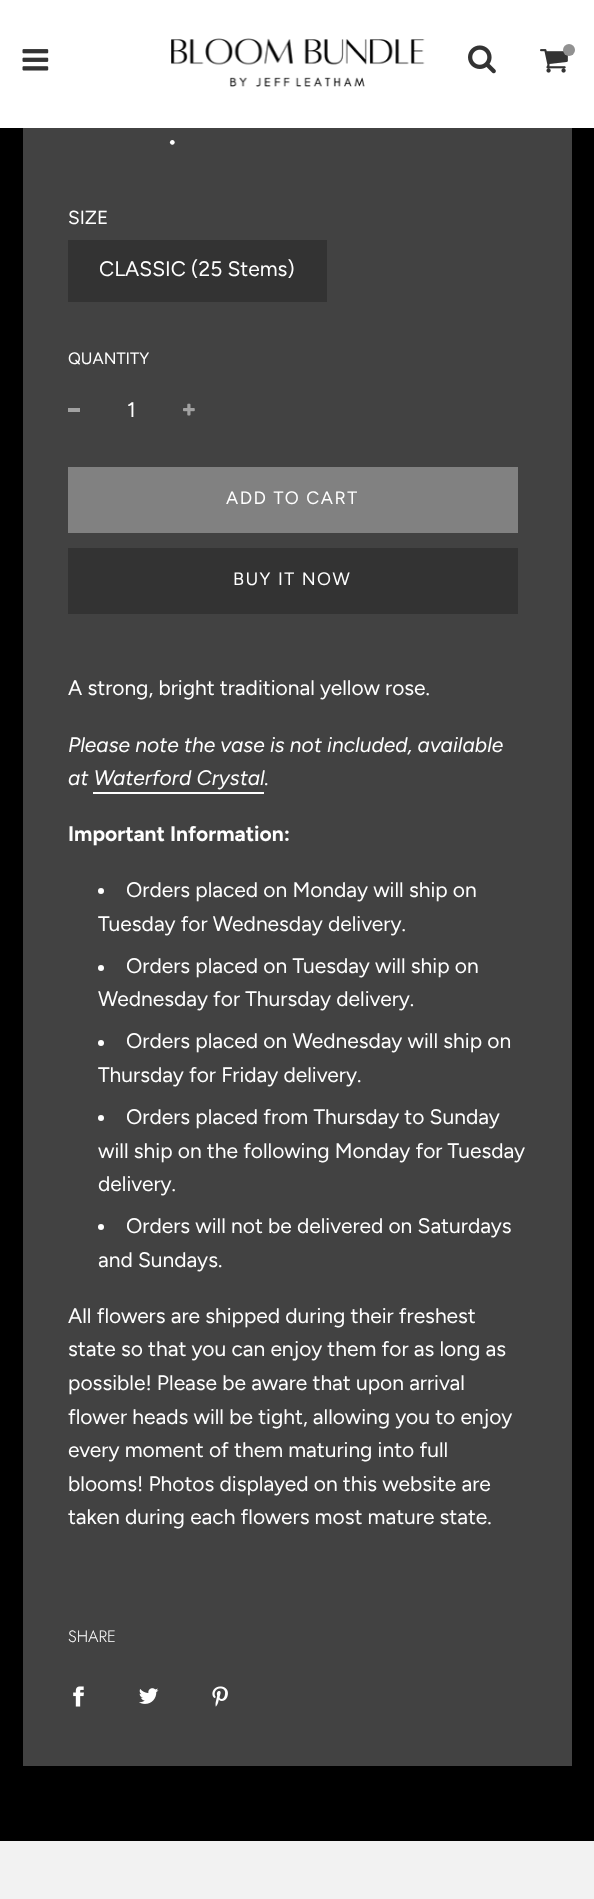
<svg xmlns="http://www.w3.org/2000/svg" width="594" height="1899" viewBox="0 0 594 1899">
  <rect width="100%" height="100%" fill="#000"/>
  <path d="M0 0h594v128H0z" fill="#fff"/>
  <image x="22" y="49" width="27" height="22" href="img/1.png"/>
  <image x="171" y="38" width="254" height="49" href="img/2.png"/>
  <image x="468" y="45" width="28" height="29" href="img/3.png"/>
  <image x="540" y="49" width="28" height="24" href="img/4.png"/>
  <circle cx="569" cy="50" r="6" fill="#919191"/>
  <path d="M23 128h549v1638H23z" fill="#424242"/>
  <path d="M68 240h259v62H68z" fill="#333"/>
  <path d="M68 408h12v4H68z" fill="#a1a1a1"/>
  <image x="183" y="403" width="12" height="13" href="img/5.png"/>
  <path d="M68 467h450v66H68z" fill="#818181"/>
  <path d="M68 548h450v66H68z" fill="#333"/>
  <path d="M93 792h171v2H93z" fill="#fff"/>
  <circle cx="101" cy="891" r="3" fill="#fff"/>
  <circle cx="101" cy="968" r="3" fill="#fff"/>
  <circle cx="101" cy="1043" r="3" fill="#fff"/>
  <circle cx="101" cy="1118" r="3" fill="#fff"/>
  <circle cx="101" cy="1227" r="3" fill="#fff"/>
  <image x="73" y="1686" width="11" height="21" href="img/6.png"/>
  <image x="139" y="1688" width="20" height="16" href="img/7.png"/>
  <image x="212" y="1686" width="16" height="21" href="img/8.png"/>
  <path d="M0 1841h594v58H0z" fill="#f2f2f2"/>
  <text x="166" y="144" font-family="Jost" font-size="42" fill="#fff">.</text>
  <text x="68" y="224" font-family="Figtree" font-size="19" fill="#fff">SIZE</text>
  <text x="99" y="276" font-family="Figtree" font-size="21" fill="#fff">CLASSIC (25 Stems)</text>
  <text x="68" y="364" font-family="Figtree" font-size="16.5" fill="#fff">QUANTITY</text>
  <text x="127" y="417" font-family="Figtree" font-size="21" fill="#fff">1</text>
  <g font-family="Figtree" font-size="18" letter-spacing="1.5" fill="#fff">
    <text x="226" y="504">ADD TO CART</text>
    <text x="233" y="585">BUY IT NOW</text>
  </g>
  <text x="68" y="695" font-family="Figtree" font-size="21" fill="#fff">A strong, bright traditional yellow rose.</text>
  <g font-family="Figtree" font-size="21" font-style="italic" fill="#fff">
    <text x="68" y="752">Please note the vase is not included, available</text>
    <text x="68" y="785">at Waterford Crystal.</text>
  </g>
  <text x="68" y="841" font-family="Figtree" font-size="21" font-weight="bold" fill="#fff">Important Information:</text>
  <g font-family="Figtree" font-size="21" fill="#fff">
    <text x="126" y="897">Orders placed on Monday will ship on</text>
    <text x="98" y="931">Tuesday for Wednesday delivery.</text>
    <text x="126" y="973">Orders placed on Tuesday will ship on</text>
    <text x="98" y="1006">Wednesday for Thursday delivery.</text>
    <text x="126" y="1048">Orders placed on Wednesday will ship on</text>
    <text x="98" y="1082">Thursday for Friday delivery.</text>
    <text x="126" y="1124">Orders placed from Thursday to Sunday</text>
    <text x="98" y="1158">will ship on the following Monday for Tuesday</text>
    <text x="98" y="1191">delivery.</text>
    <text x="126" y="1233">Orders will not be delivered on Saturdays</text>
    <text x="98" y="1267">and Sundays.</text>
    <text x="68" y="1323">All flowers are shipped during their freshest</text>
    <text x="68" y="1356">state so that you can enjoy them for as long as</text>
    <text x="68" y="1390">possible! Please be aware that upon arrival</text>
    <text x="68" y="1424">flower heads will be tight, allowing you to enjoy</text>
    <text x="68" y="1457">every moment of them maturing into full</text>
    <text x="68" y="1491">blooms! Photos displayed on this website are</text>
    <text x="68" y="1524">taken during each flowers most mature state.</text>
  </g>
  <text x="68" y="1642" font-family="Jost" font-size="16.5" font-weight="300" fill="#fff">SHARE</text>
</svg>
